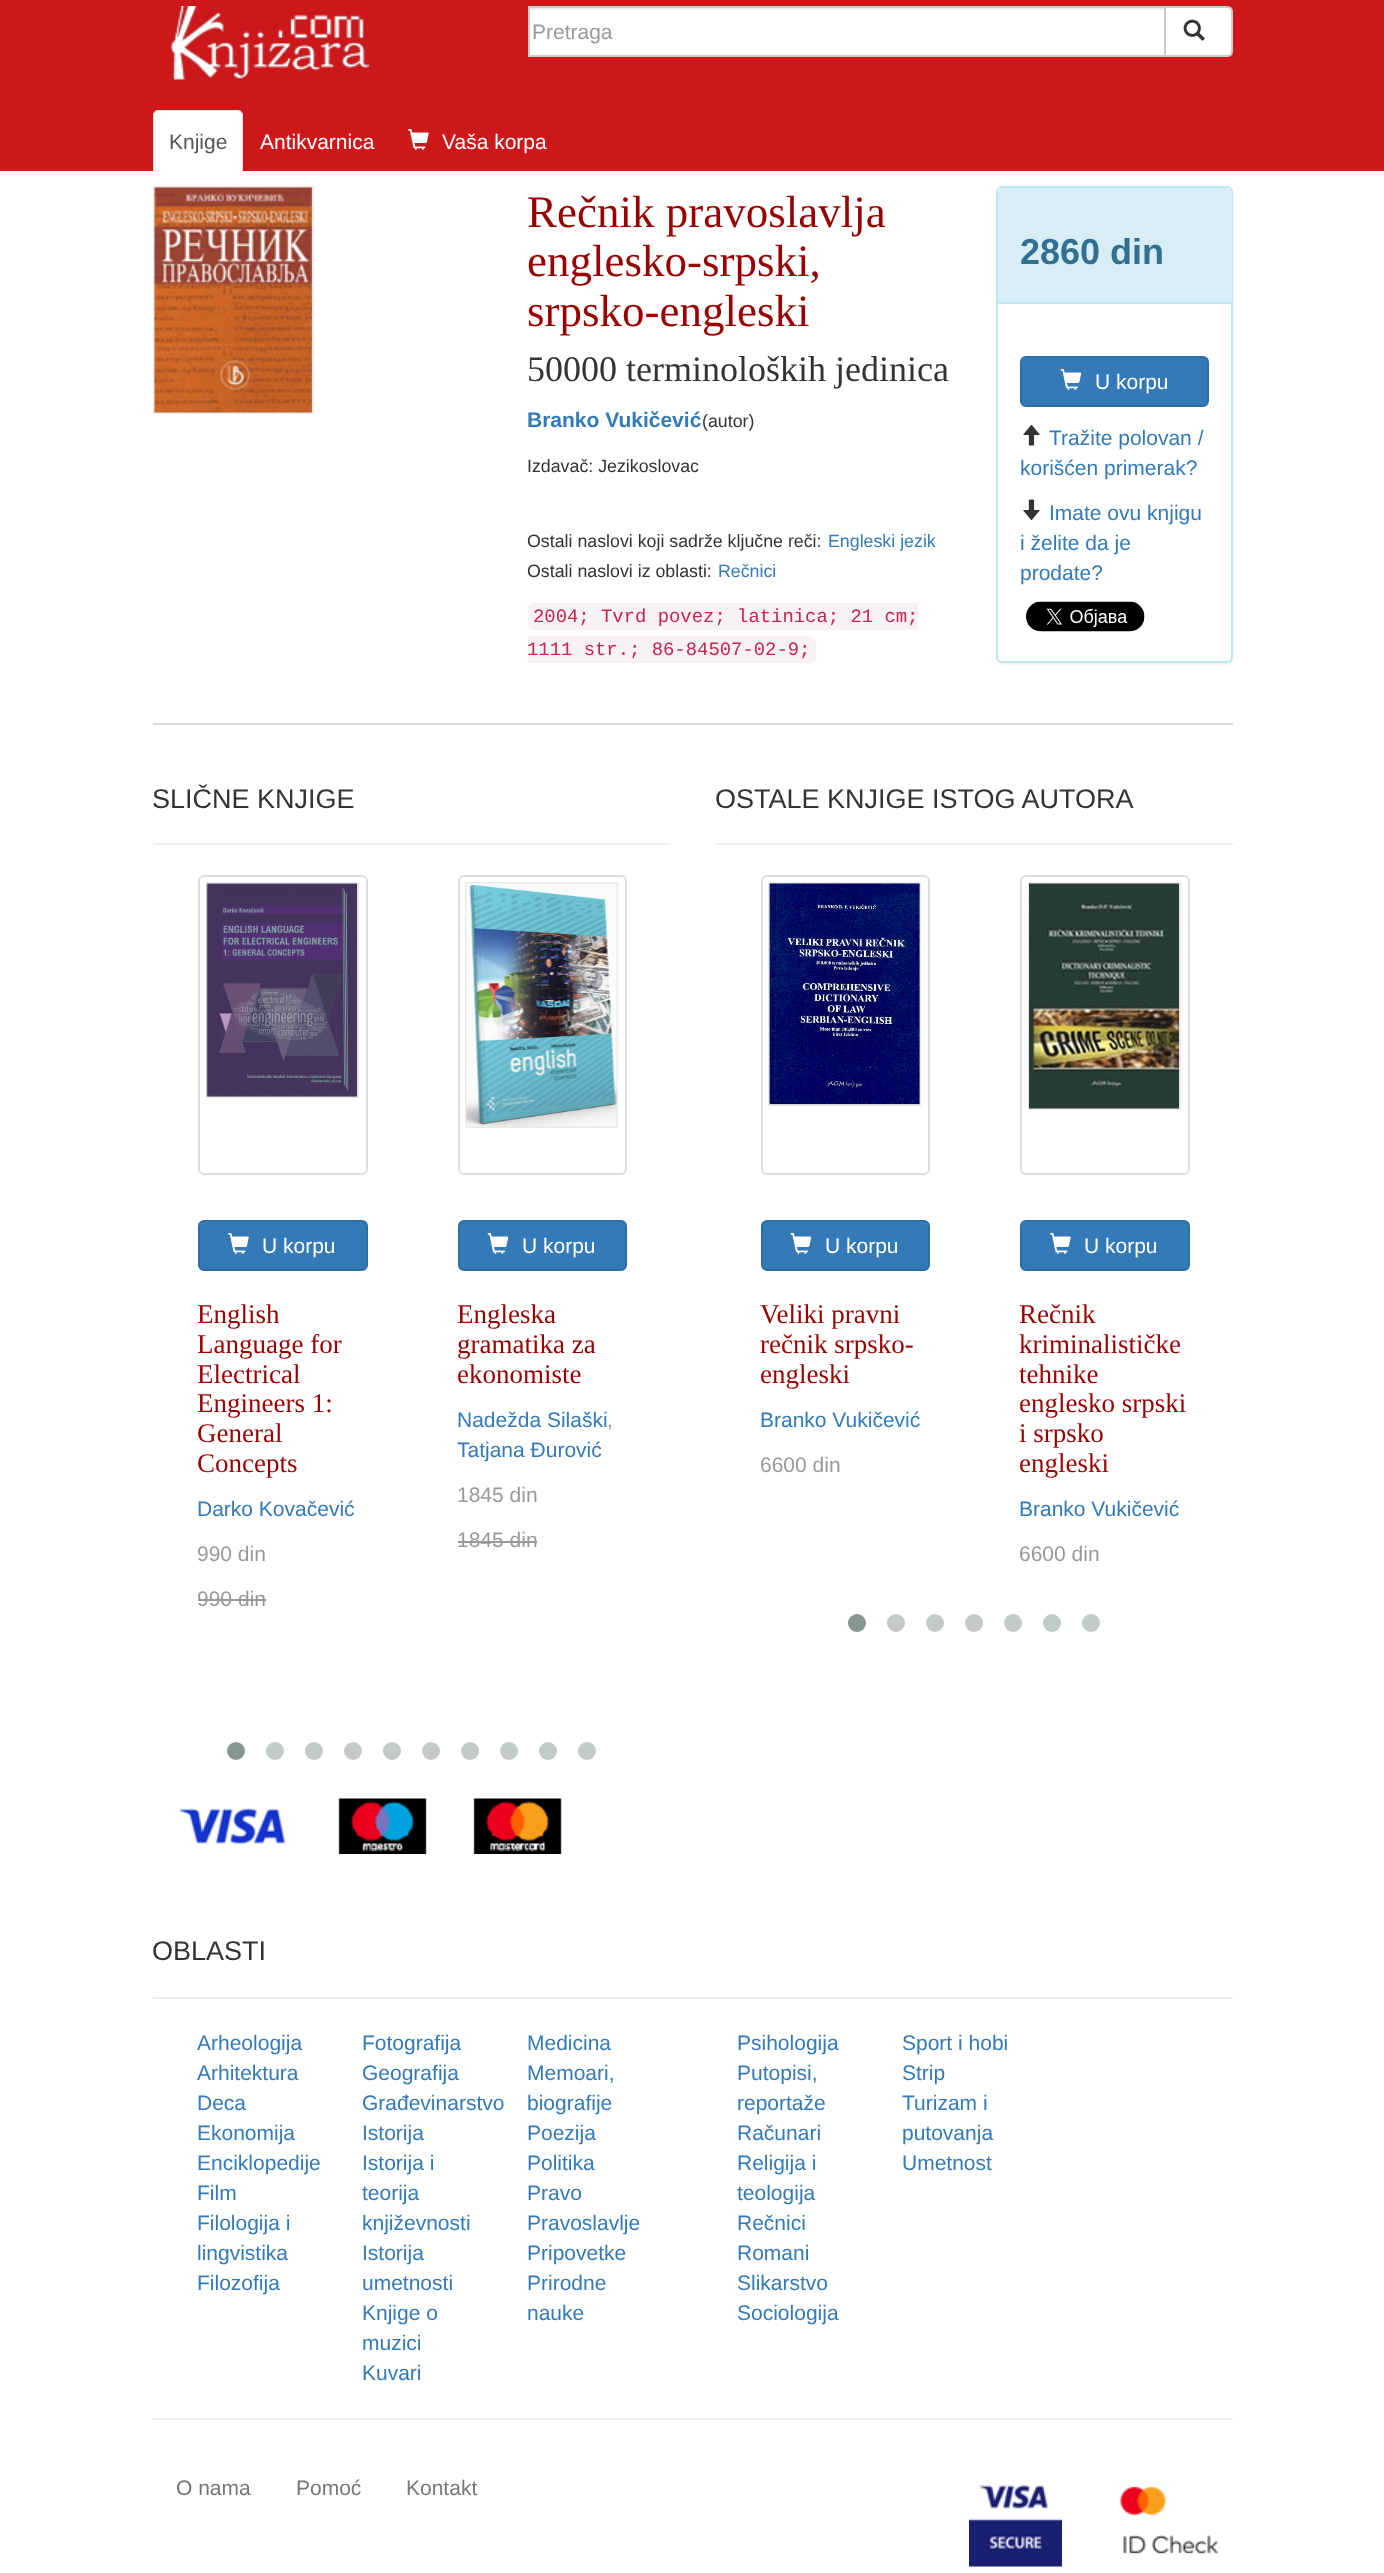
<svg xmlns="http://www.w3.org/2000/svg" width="1384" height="2573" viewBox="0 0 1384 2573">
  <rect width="100%" height="100%" fill="#fff"/>
  <path d="M0 0h1384v171H0z" fill="#cc181b"/>
  <image x="170" y="6" width="200" height="74" href="img/1.png"/>
  <path d="M530 10h634v45H530z" fill="#fff"/>
  <path d="M530 8h634v2H530z" fill="#ececec"/>
  <path d="M1165 7H1227C1230 7 1232 9 1232 12V51C1232 54 1230 56 1227 56H1165Z" fill="#fff" stroke="#ccc" stroke-width="2"/>
  <path d="M529 7h636v49H529z" fill="none" stroke="#ccc" stroke-width="2"/>
  <image x="1183" y="19" width="22" height="22" href="img/2.png"/>
  <path d="M159 110H237C240.5 110 243 112.5 243 116V173H153V116C153 112.5 155.5 110 159 110Z" fill="#fff"/>
  <path d="M159 110C158 110 156 110 155 111L156 112L159 111H237L240 112L241 111C240 110 238 110 237 110Z" fill="#ddd"/>
  <path d="M241 111C242 112 243 114 243 116V172H242V171V115L240 112Z" fill="#ddd"/>
  <path d="M153 116V172H154V171V115L156 112L155 111C154 112 153 114 153 116Z" fill="#ddd"/>
  <image x="408" y="129" width="21" height="21" href="img/3.png"/>
  <path d="M154 187h159v226H154z" fill="none" stroke="#e9e9e9" stroke-width="2"/>
  <image x="154" y="187" width="158" height="226" href="img/4.png"/>
  <path d="M534 603H918V630H534C530.5 630 528 627.5 528 624V609C528 605.5 530.5 603 534 603Z" fill="#f9f2f4"/>
  <path d="M528 636H810C813.5 636 816 638.5 816 642V657C816 660.5 813.5 663 810 663H528Z" fill="#f9f2f4"/>
  <rect x="996" y="188" width="237" height="477" rx="6" fill="#0000000d" filter="blur(1px)"/>
  <rect x="997" y="187" width="235" height="475" rx="5" fill="#fff" stroke="#bce8f1" stroke-width="2"/>
  <path d="M1003 188H1227C1230 188 1232 190 1232 193V303H998V193C998 190 1000 188 1003 188Z" fill="#d9edf7"/>
  <path d="M998 302h234v2H998z" fill="#bce8f1"/>
  <rect x="1021" y="357" width="187" height="49" rx="5" fill="#337ab7" stroke="#2e6da4" stroke-width="2"/>
  <image x="1060" y="369" width="22" height="21" href="img/5.png"/>
  <image x="1023" y="425" width="17" height="21" href="img/6.png"/>
  <image x="1023" y="499" width="17" height="21" href="img/7.png"/>
  <image x="1026" y="601" width="119" height="31" href="img/8.png"/>
  <path d="M153 723h1080v2H153z" fill="#ddd"/>
  <path d="M153 843h518v2H153z" fill="#eee"/>
  <rect x="199" y="876" width="168" height="298" rx="5" fill="none" stroke="#ddd" stroke-width="2"/>
  <path d="M207 883h151v214H207z" fill="none" stroke="#e9e9e9" stroke-width="2"/>
  <image x="206" y="883" width="152" height="214" href="img/9.png"/>
  <rect x="199" y="1221" width="168" height="49" rx="5" fill="#337ab7" stroke="#2e6da4" stroke-width="2"/>
  <image x="228" y="1233" width="21" height="21" href="img/10.png"/>
  <path d="M198 1599h41v2H198z" fill="#999"/>
  <path d="M239 1599h27v2H239z" fill="#999"/>
  <rect x="459" y="876" width="167" height="298" rx="5" fill="none" stroke="#ddd" stroke-width="2"/>
  <path d="M466 883h151v244H466z" fill="none" stroke="#e9e9e9" stroke-width="2"/>
  <image x="466" y="883" width="151" height="244" href="img/11.png"/>
  <rect x="459" y="1221" width="167" height="49" rx="5" fill="#337ab7" stroke="#2e6da4" stroke-width="2"/>
  <image x="487" y="1233" width="22" height="21" href="img/5.png"/>
  <path d="M458 1541h79v2H458z" fill="#999"/>
  <circle cx="236" cy="1751" r="9" fill="#869791"/>
  <circle cx="275" cy="1751" r="9" fill="#c3cbc8"/>
  <circle cx="314" cy="1751" r="9" fill="#c3cbc8"/>
  <circle cx="353" cy="1751" r="9" fill="#c3cbc8"/>
  <circle cx="392" cy="1751" r="9" fill="#c3cbc8"/>
  <circle cx="431" cy="1751" r="9" fill="#c3cbc8"/>
  <circle cx="470" cy="1751" r="9" fill="#c3cbc8"/>
  <circle cx="509" cy="1751" r="9" fill="#c3cbc8"/>
  <circle cx="548" cy="1751" r="9" fill="#c3cbc8"/>
  <circle cx="587" cy="1751" r="9" fill="#c3cbc8"/>
  <path d="M716 843h517v2H716z" fill="#eee"/>
  <rect x="762" y="876" width="167" height="298" rx="5" fill="none" stroke="#ddd" stroke-width="2"/>
  <path d="M769 883h151v222H769z" fill="none" stroke="#e9e9e9" stroke-width="2"/>
  <image x="769" y="883" width="151" height="222" href="img/12.png"/>
  <rect x="762" y="1221" width="167" height="49" rx="5" fill="#337ab7" stroke="#2e6da4" stroke-width="2"/>
  <image x="790" y="1233" width="22" height="21" href="img/5.png"/>
  <rect x="1021" y="876" width="168" height="298" rx="5" fill="none" stroke="#ddd" stroke-width="2"/>
  <path d="M1029 883h151v226H1029z" fill="none" stroke="#e9e9e9" stroke-width="2"/>
  <image x="1029" y="883" width="150" height="226" href="img/13.png"/>
  <rect x="1021" y="1221" width="168" height="49" rx="5" fill="#337ab7" stroke="#2e6da4" stroke-width="2"/>
  <image x="1050" y="1233" width="21" height="21" href="img/10.png"/>
  <circle cx="857" cy="1623" r="9" fill="#869791"/>
  <circle cx="896" cy="1623" r="9" fill="#c3cbc8"/>
  <circle cx="935" cy="1623" r="9" fill="#c3cbc8"/>
  <circle cx="974" cy="1623" r="9" fill="#c3cbc8"/>
  <circle cx="1013" cy="1623" r="9" fill="#c3cbc8"/>
  <circle cx="1052" cy="1623" r="9" fill="#c3cbc8"/>
  <circle cx="1091" cy="1623" r="9" fill="#c3cbc8"/>
  <image x="179" y="1808" width="107" height="36" href="img/14.png"/>
  <image x="338" y="1798" width="89" height="56" href="img/15.png"/>
  <image x="473" y="1798" width="89" height="56" href="img/16.png"/>
  <path d="M153 1997h1080v2H153z" fill="#eee"/>
  <path d="M153 2418h1080v2H153z" fill="#eee"/>
  <image x="969" y="2485" width="93" height="82" href="img/17.png"/>
  <image x="1120" y="2486" width="99" height="68" href="img/18.png"/>
  <text x="532" y="39" font-family="Liberation Sans" font-size="21" fill="#999">Pretraga</text>
  <text x="169" y="149" font-family="Liberation Sans" font-size="21" fill="#555">Knjige</text>
  <g font-family="Liberation Sans" font-size="21" fill="#fff">
    <text x="260" y="149">Antikvarnica</text>
    <text x="442" y="149">Vaša korpa</text>
  </g>
  <g font-family="Liberation Serif" font-size="45" fill="#900">
    <text x="527" y="227">Rečnik pravoslavlja</text>
    <text x="527" y="276">englesko-srpski,</text>
    <text x="527" y="326">srpsko-engleski</text>
  </g>
  <text x="527" y="381" font-family="Liberation Serif" font-size="36" fill="#333">50000 terminoloških jedinica</text>
  <text x="527" y="427" font-family="Liberation Sans" font-size="21" font-weight="bold" fill="#337ab7">Branko Vukičević</text>
  <g font-family="Liberation Sans" font-size="17.8" fill="#333">
    <text x="702" y="427">(autor)</text>
    <text x="527" y="472">Izdavač: Jezikoslovac</text>
    <text x="527" y="547">Ostali naslovi koji sadrže ključne reči:</text>
  </g>
  <text x="828" y="547" font-family="Liberation Sans" font-size="17.8" fill="#337ab7">Engleski jezik</text>
  <text x="527" y="577" font-family="Liberation Sans" font-size="17.8" fill="#333">Ostali naslovi iz oblasti:</text>
  <text x="718" y="577" font-family="Liberation Sans" font-size="17.8" fill="#337ab7">Rečnici</text>
  <g font-family="Liberation Mono" font-size="18.9" fill="#c7254e">
    <text x="533" y="622">2004; Tvrd povez; latinica; 21 cm;</text>
    <text x="527" y="655">1111 str.; 86-84507-02-9;</text>
  </g>
  <text x="1020" y="264" font-family="Liberation Sans" font-size="36" font-weight="bold" fill="#31708f">2860 din</text>
  <text x="1095" y="389" font-family="Liberation Sans" font-size="21" fill="#fff">U korpu</text>
  <g font-family="Liberation Sans" font-size="21" fill="#337ab7">
    <text x="1049" y="445">Tražite polovan /</text>
    <text x="1020" y="475">korišćen primerak?</text>
    <text x="1049" y="520">Imate ovu knjigu</text>
    <text x="1020" y="550">i želite da je</text>
    <text x="1020" y="580">prodate?</text>
  </g>
  <text x="152" y="808" font-family="Liberation Sans" font-size="27" fill="#333">SLIČNE KNJIGE</text>
  <text x="262" y="1253" font-family="Liberation Sans" font-size="21" fill="#fff">U korpu</text>
  <g font-family="Liberation Serif" font-size="27" fill="#900">
    <text x="197" y="1323">English</text>
    <text x="197" y="1353">Language for</text>
    <text x="197" y="1383">Electrical</text>
    <text x="197" y="1412">Engineers 1:</text>
    <text x="197" y="1442">General</text>
    <text x="197" y="1472">Concepts</text>
  </g>
  <text x="197" y="1516" font-family="Liberation Sans" font-size="21" fill="#337ab7">Darko Kovačević</text>
  <g font-family="Liberation Sans" font-size="21" fill="#999">
    <text x="197" y="1561">990 din</text>
    <text x="197" y="1606">990</text>
    <text x="238" y="1606">din</text>
  </g>
  <text x="522" y="1253" font-family="Liberation Sans" font-size="21" fill="#fff">U korpu</text>
  <g font-family="Liberation Serif" font-size="27" fill="#900">
    <text x="457" y="1323">Engleska</text>
    <text x="457" y="1353">gramatika za</text>
    <text x="457" y="1383">ekonomiste</text>
  </g>
  <text x="457" y="1427" font-family="Liberation Sans" font-size="21" fill="#337ab7">Nadežda Silaški</text>
  <text x="607" y="1427" font-family="Liberation Sans" font-size="21" fill="#999">,</text>
  <text x="457" y="1457" font-family="Liberation Sans" font-size="21" fill="#337ab7">Tatjana Đurović</text>
  <g font-family="Liberation Sans" font-size="21" fill="#999">
    <text x="457" y="1502">1845 din</text>
    <text x="457" y="1547">1845 din</text>
  </g>
  <text x="715" y="808" font-family="Liberation Sans" font-size="27" fill="#333">OSTALE KNJIGE ISTOG AUTORA</text>
  <text x="825" y="1253" font-family="Liberation Sans" font-size="21" fill="#fff">U korpu</text>
  <g font-family="Liberation Serif" font-size="27" fill="#900">
    <text x="760" y="1323">Veliki pravni</text>
    <text x="760" y="1353">rečnik srpsko-</text>
    <text x="760" y="1383">engleski</text>
  </g>
  <text x="760" y="1427" font-family="Liberation Sans" font-size="21" fill="#337ab7">Branko Vukičević</text>
  <text x="760" y="1472" font-family="Liberation Sans" font-size="21" fill="#999">6600 din</text>
  <text x="1084" y="1253" font-family="Liberation Sans" font-size="21" fill="#fff">U korpu</text>
  <g font-family="Liberation Serif" font-size="27" fill="#900">
    <text x="1019" y="1323">Rečnik</text>
    <text x="1019" y="1353">kriminalističke</text>
    <text x="1019" y="1383">tehnike</text>
    <text x="1019" y="1412">englesko srpski</text>
    <text x="1019" y="1442">i srpsko</text>
    <text x="1019" y="1472">engleski</text>
  </g>
  <text x="1019" y="1516" font-family="Liberation Sans" font-size="21" fill="#337ab7">Branko Vukičević</text>
  <text x="1019" y="1561" font-family="Liberation Sans" font-size="21" fill="#999">6600 din</text>
  <text x="152" y="1960" font-family="Liberation Sans" font-size="27" fill="#333">OBLASTI</text>
  <g font-family="Liberation Sans" font-size="21" fill="#337ab7">
    <text x="197" y="2050">Arheologija</text>
    <text x="197" y="2080">Arhitektura</text>
    <text x="197" y="2110">Deca</text>
    <text x="197" y="2140">Ekonomija</text>
    <text x="197" y="2170">Enciklopedije</text>
    <text x="197" y="2200">Film</text>
    <text x="197" y="2230">Filologija i</text>
    <text x="197" y="2260">lingvistika</text>
    <text x="197" y="2290">Filozofija</text>
    <text x="362" y="2050">Fotografija</text>
    <text x="362" y="2080">Geografija</text>
    <text x="362" y="2110">Građevinarstvo</text>
    <text x="362" y="2140">Istorija</text>
    <text x="362" y="2170">Istorija i</text>
    <text x="362" y="2200">teorija</text>
    <text x="362" y="2230">književnosti</text>
    <text x="362" y="2260">Istorija</text>
    <text x="362" y="2290">umetnosti</text>
    <text x="362" y="2320">Knjige o</text>
    <text x="362" y="2350">muzici</text>
    <text x="362" y="2380">Kuvari</text>
    <text x="527" y="2050">Medicina</text>
    <text x="527" y="2080">Memoari,</text>
    <text x="527" y="2110">biografije</text>
    <text x="527" y="2140">Poezija</text>
    <text x="527" y="2170">Politika</text>
    <text x="527" y="2200">Pravo</text>
    <text x="527" y="2230">Pravoslavlje</text>
    <text x="527" y="2260">Pripovetke</text>
    <text x="527" y="2290">Prirodne</text>
    <text x="527" y="2320">nauke</text>
    <text x="737" y="2050">Psihologija</text>
    <text x="737" y="2080">Putopisi,</text>
    <text x="737" y="2110">reportaže</text>
    <text x="737" y="2140">Računari</text>
    <text x="737" y="2170">Religija i</text>
    <text x="737" y="2200">teologija</text>
    <text x="737" y="2230">Rečnici</text>
    <text x="737" y="2260">Romani</text>
    <text x="737" y="2290">Slikarstvo</text>
    <text x="737" y="2320">Sociologija</text>
    <text x="902" y="2050">Sport i hobi</text>
    <text x="902" y="2080">Strip</text>
    <text x="902" y="2110">Turizam i</text>
    <text x="902" y="2140">putovanja</text>
    <text x="902" y="2170">Umetnost</text>
  </g>
  <g font-family="Liberation Sans" font-size="21" fill="#777">
    <text x="176" y="2495">O nama</text>
    <text x="296" y="2495">Pomoć</text>
    <text x="406" y="2495">Kontakt</text>
  </g>
</svg>
